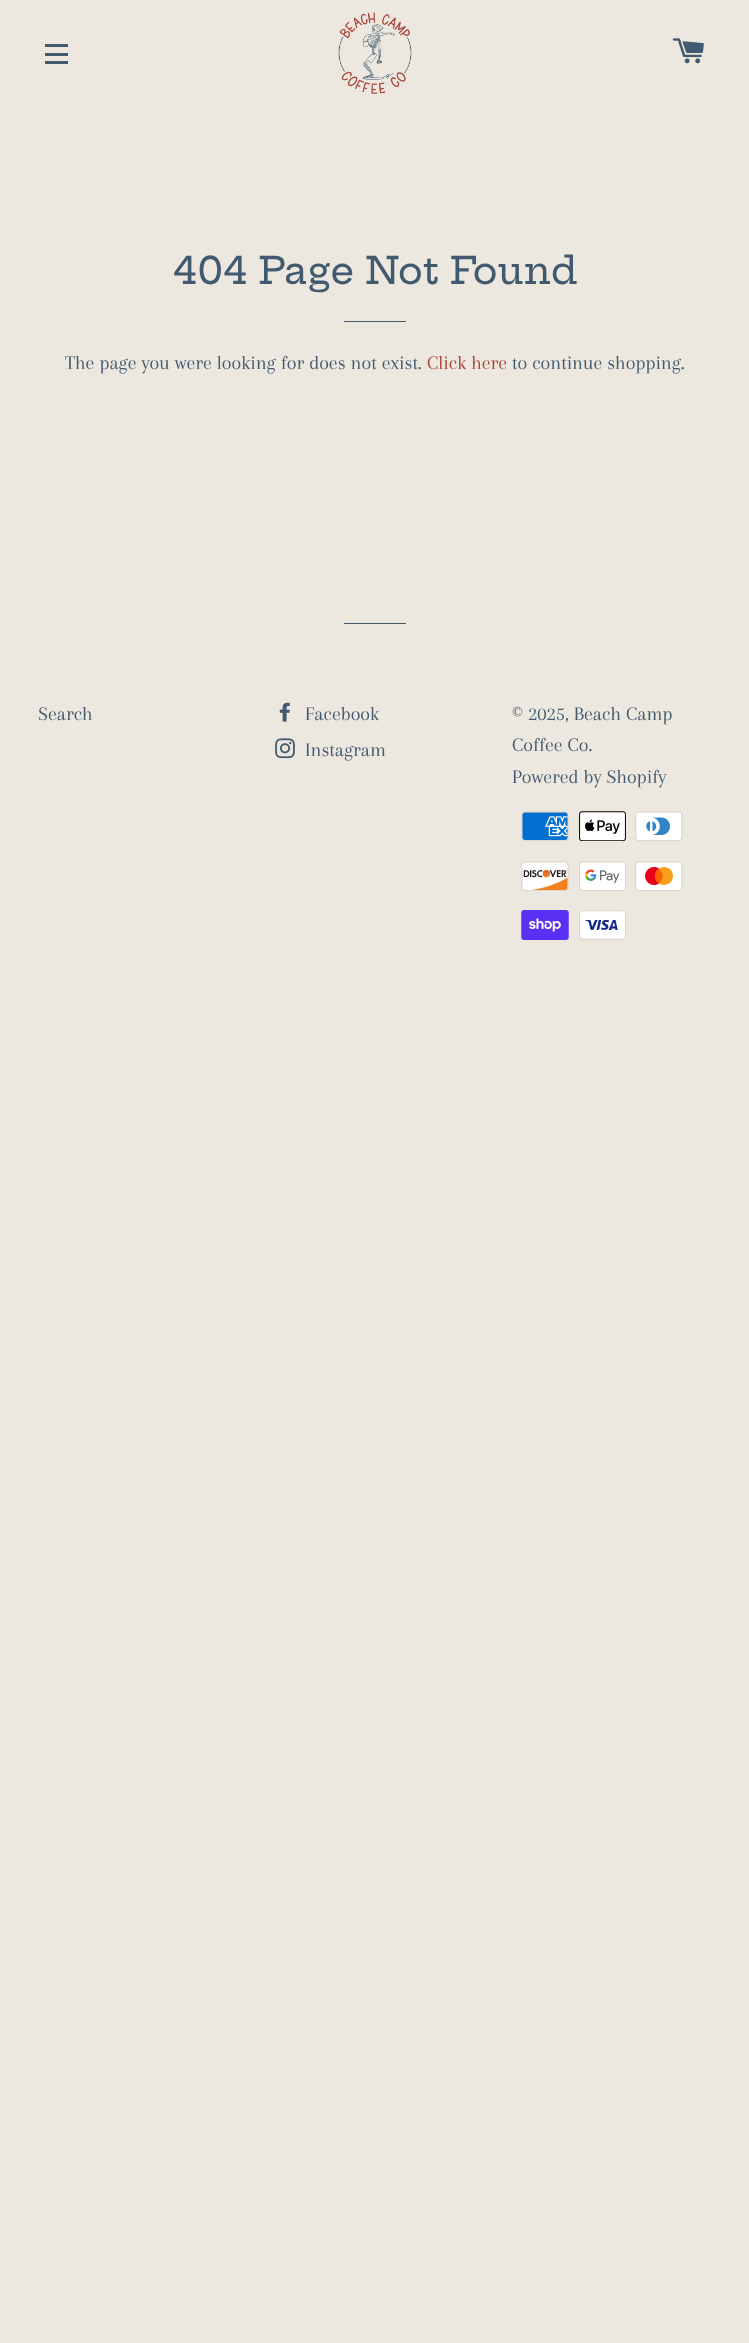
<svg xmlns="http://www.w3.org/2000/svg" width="749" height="2343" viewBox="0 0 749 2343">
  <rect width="100%" height="100%" fill="#ede8df"/>
  <path d="M45 44h23v3H45z" fill="#425a6f"/>
  <path d="M45 53h23v3H45z" fill="#425a6f"/>
  <path d="M45 61h23v3H45z" fill="#425a6f"/>
  <image x="338" y="12" width="74" height="82" href="img/1.png"/>
  <image x="672" y="38" width="32" height="26" href="img/2.png"/>
  <path d="M344 321h62v1H344z" fill="#425a6f"/>
  <path d="M344 623h62v1H344z" fill="#425a6f"/>
  <image x="279" y="702" width="11" height="20" href="img/3.png"/>
  <image x="275" y="738" width="20" height="21" href="img/4.png"/>
  <image x="521" y="811" width="48" height="30" href="img/5.png"/>
  <image x="579" y="811" width="47" height="30" href="img/6.png"/>
  <image x="635" y="811" width="48" height="30" href="img/7.png"/>
  <image x="521" y="861" width="48" height="30" href="img/8.png"/>
  <image x="579" y="861" width="47" height="30" href="img/9.png"/>
  <image x="635" y="861" width="48" height="30" href="img/10.png"/>
  <image x="521" y="910" width="48" height="30" href="img/11.png"/>
  <image x="579" y="910" width="47" height="30" href="img/12.png"/>
  <text x="173" y="284" font-family="Hepta Slab" font-size="37.5" font-weight="500" fill="#425a6f">404 Page Not Found</text>
  <text x="65" y="369" font-family="Arapey" font-size="20" fill="#425a6f">The page you were looking for does not exist.</text>
  <text x="427" y="369" font-family="Arapey" font-size="20" fill="#aa4339">Click here</text>
  <g font-family="Arapey" font-size="20" fill="#425a6f">
    <text x="512" y="369">to continue shopping.</text>
    <text x="38" y="720">Search</text>
    <text x="305" y="720">Facebook</text>
    <text x="305" y="756">Instagram</text>
    <text x="512" y="720">© 2025, Beach Camp</text>
    <text x="512" y="751">Coffee Co.</text>
    <text x="512" y="783">Powered by Shopify</text>
  </g>
</svg>
